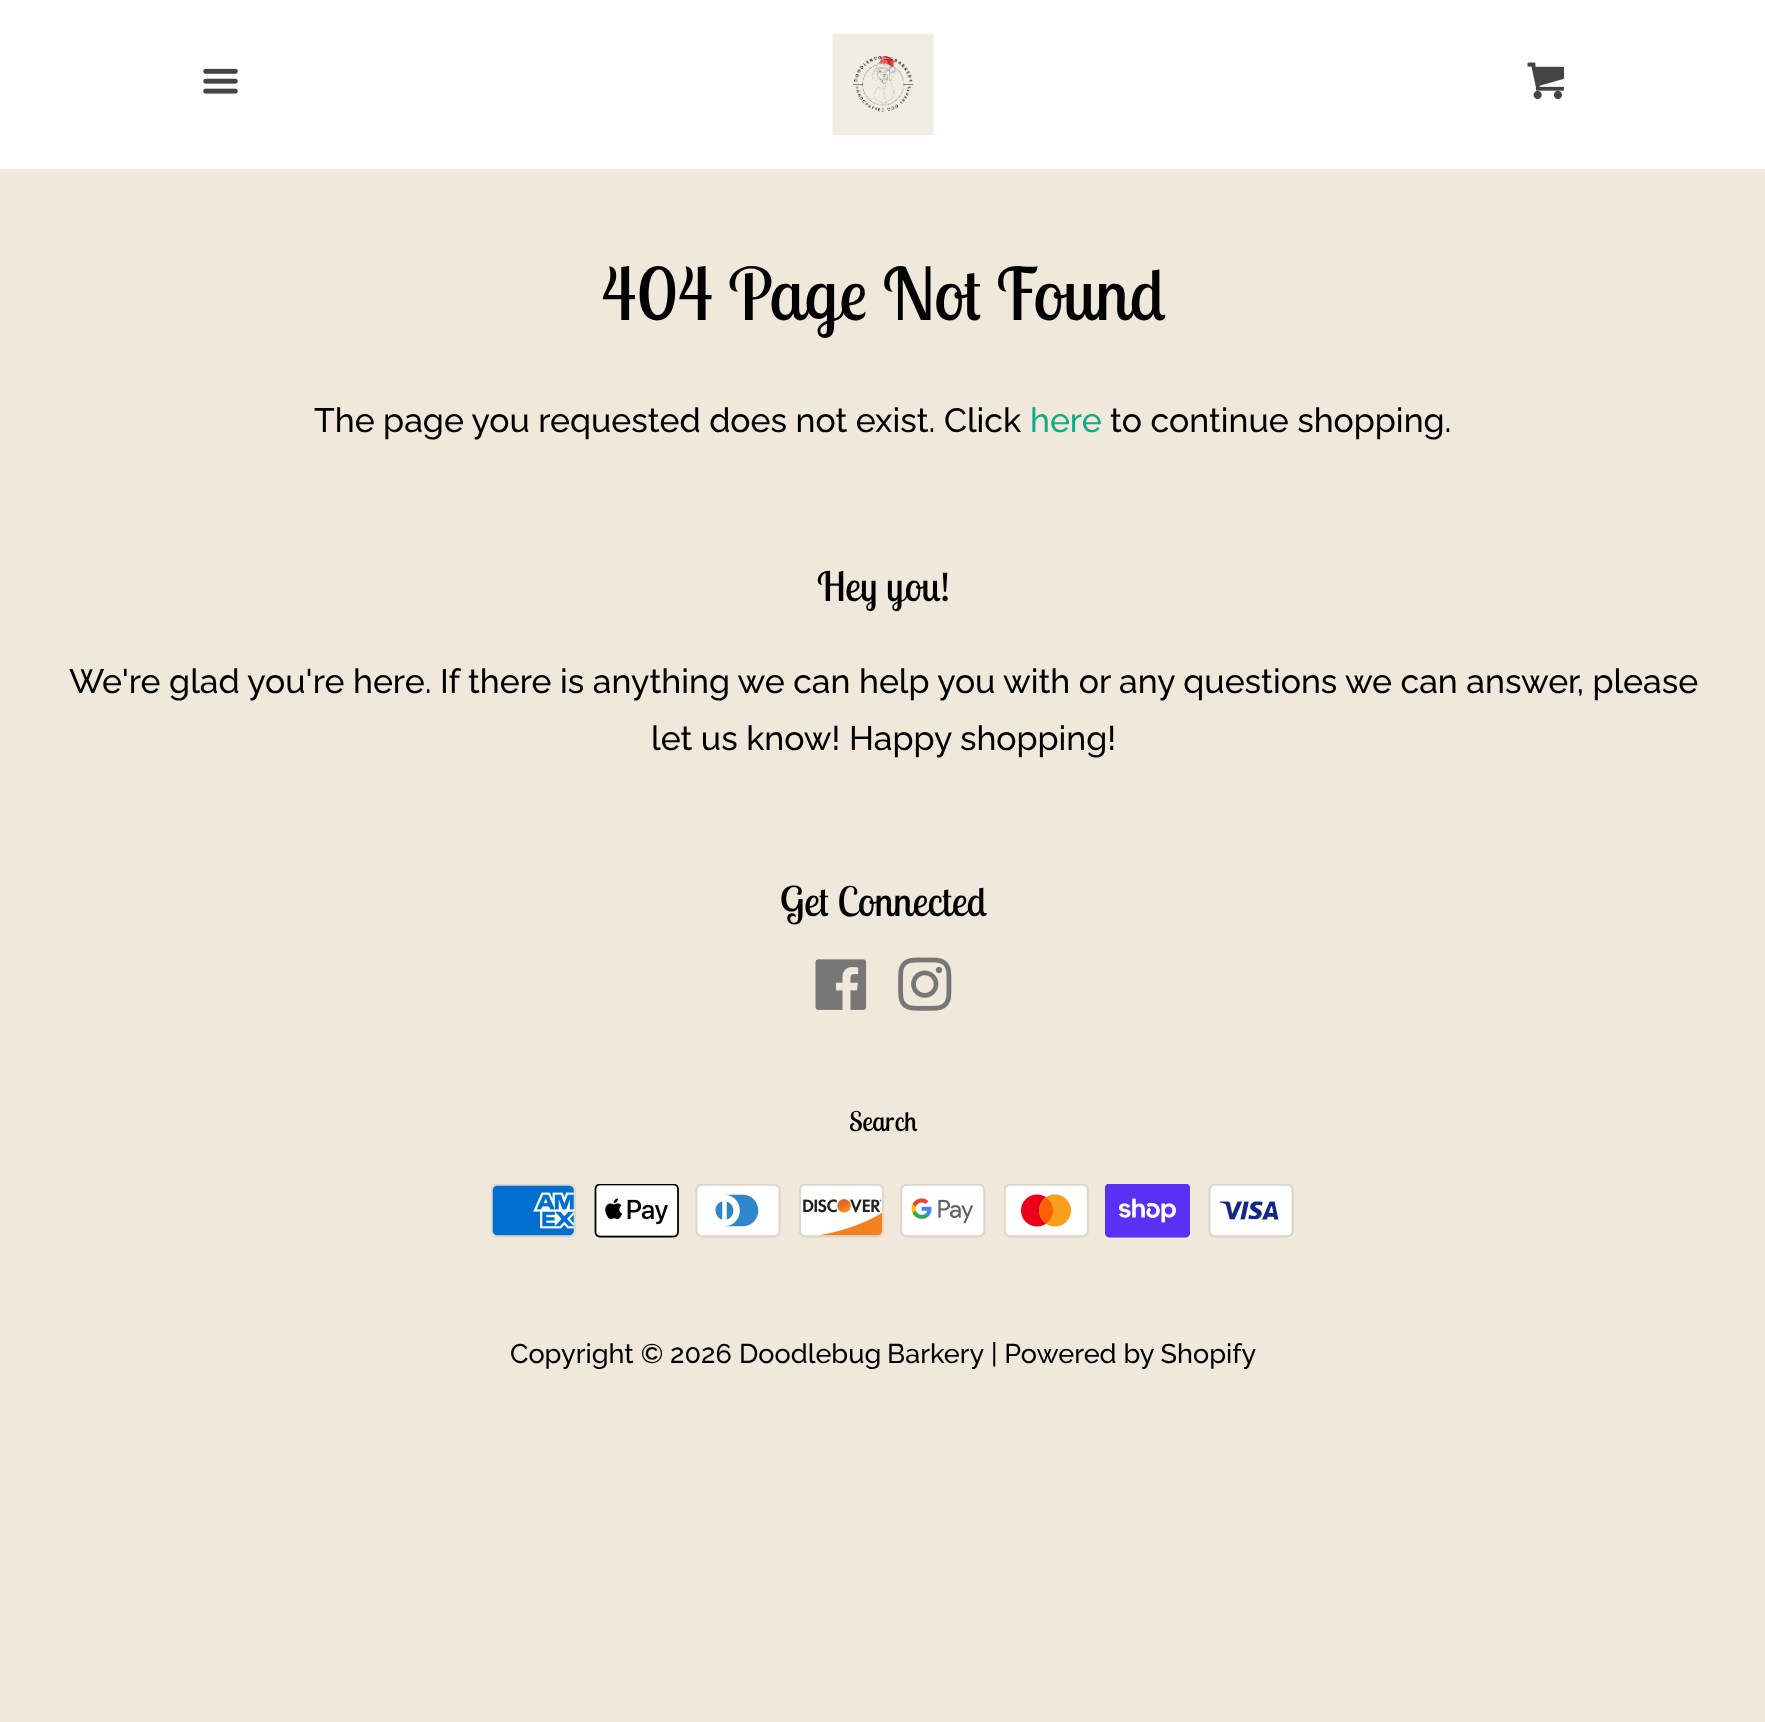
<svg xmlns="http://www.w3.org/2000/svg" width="1765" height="1722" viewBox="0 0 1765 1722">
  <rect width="100%" height="100%" fill="#fff"/>
  <image x="203" y="68" width="35" height="26" href="img/1.png"/>
  <image x="832" y="33" width="102" height="102" href="img/2.png"/>
  <image x="1527" y="62" width="37" height="37" href="img/3.png"/>
  <path d="M0 169h1765v1553H0z" fill="#efe8db"/>
  <image x="815" y="959" width="52" height="51" href="img/4.png"/>
  <image x="898" y="957" width="54" height="54" href="img/5.png"/>
  <image x="491" y="1184" width="85" height="54" href="img/6.png"/>
  <image x="594" y="1184" width="85" height="54" href="img/7.png"/>
  <image x="695" y="1184" width="86" height="54" href="img/8.png"/>
  <image x="799" y="1184" width="85" height="54" href="img/9.png"/>
  <image x="900" y="1184" width="86" height="54" href="img/10.png"/>
  <image x="1004" y="1184" width="85" height="54" href="img/11.png"/>
  <image x="1105" y="1184" width="85" height="54" href="img/12.png"/>
  <image x="1208" y="1184" width="86" height="54" href="img/13.png"/>
  <text x="602" y="320" font-family="Lobster Two" font-size="72" fill="#000">404 Page Not Found</text>
  <text x="314" y="432" font-family="Raleway" font-size="33.75" font-weight="500" fill="#000">The page you requested does not exist. Click</text>
  <text x="1030" y="432" font-family="Raleway" font-size="33.75" font-weight="500" fill="#0fac85">here</text>
  <text x="1110" y="432" font-family="Raleway" font-size="33.75" font-weight="500" fill="#000">to continue shopping.</text>
  <text x="817" y="601" font-family="Lobster Two" font-size="40.5" fill="#000">Hey you!</text>
  <g font-family="Raleway" font-size="33.75" font-weight="500" fill="#000">
    <text x="69" y="693">We're glad you're here. If there is anything we can help you with or any questions we can answer, please</text>
    <text x="651" y="750">let us know! Happy shopping!</text>
  </g>
  <text x="780" y="916" font-family="Lobster Two" font-size="40.5" fill="#000">Get Connected</text>
  <text x="849" y="1131" font-family="Lobster Two" font-size="27" fill="#000">Search</text>
  <g font-family="Raleway" font-size="27" font-weight="500" fill="#000">
    <text x="510" y="1363">Copyright © 2026</text>
    <text x="739" y="1363" word-spacing="-1">Doodlebug Barkery</text>
    <text x="991" y="1363">| Powered by Shopify</text>
  </g>
</svg>
